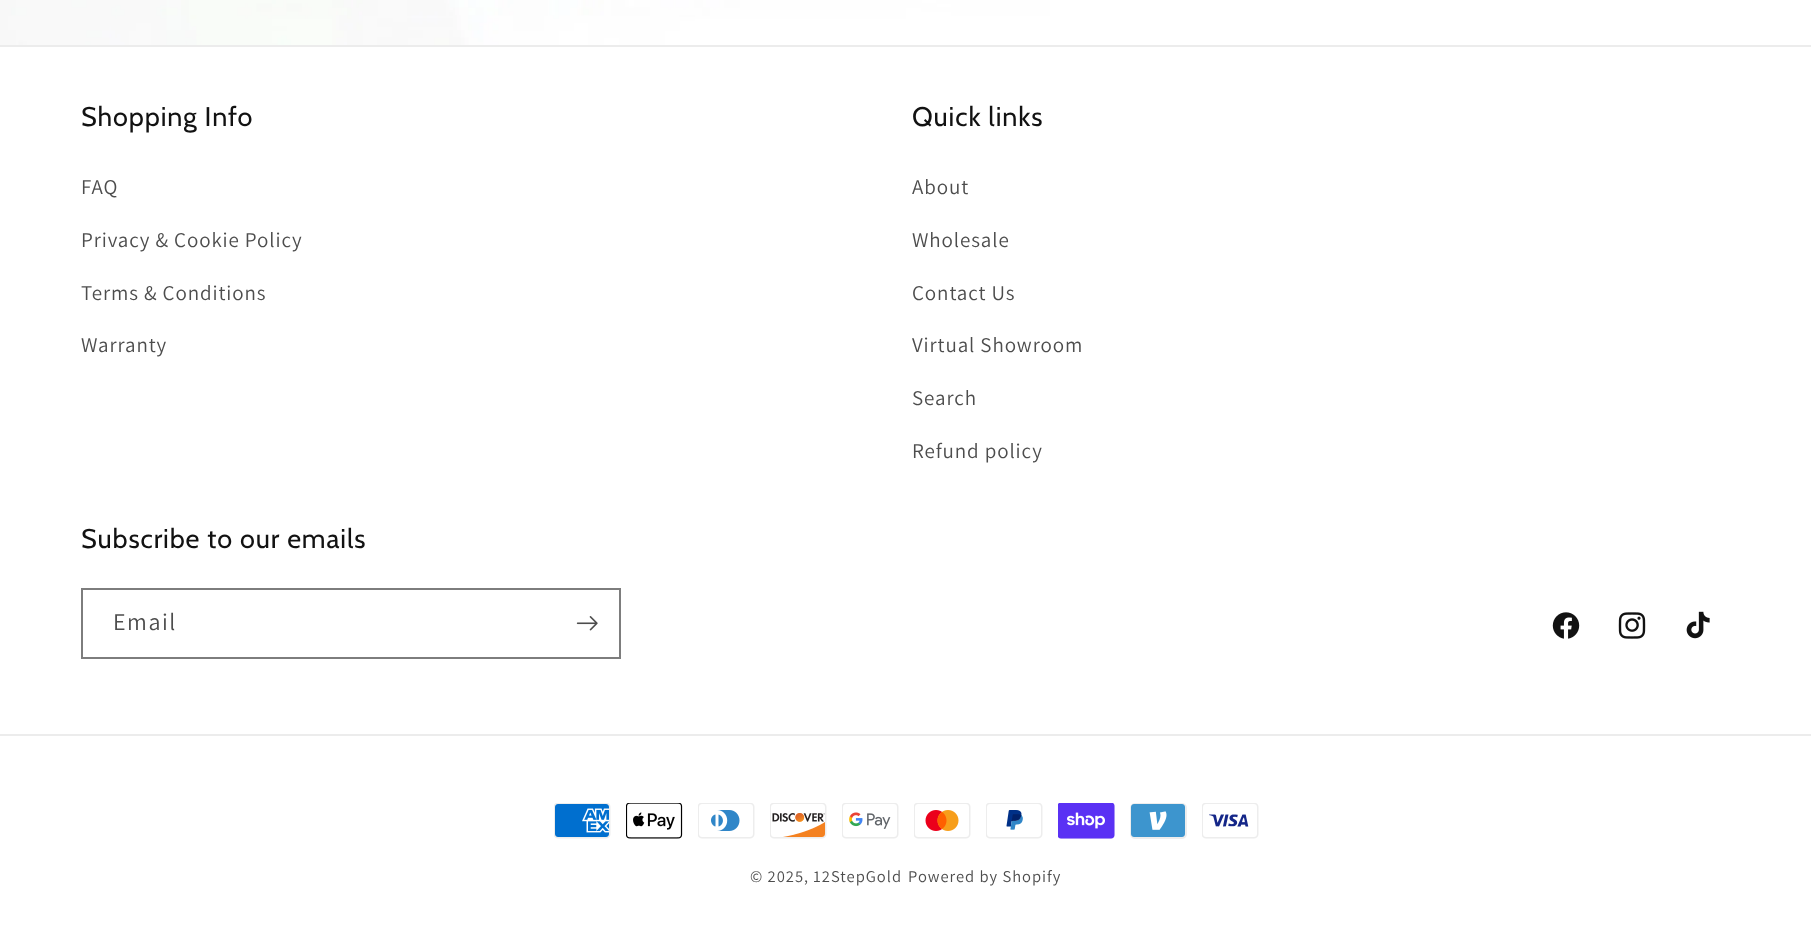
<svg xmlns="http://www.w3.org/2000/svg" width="1811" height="945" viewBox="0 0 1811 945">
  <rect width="100%" height="100%" fill="#fff"/>
  <image x="0" y="0" width="1166" height="45" href="img/1.png"/>
  <path d="M0 45h1811v2H0z" fill="#ececec"/>
  <path d="M82 589h538v69H82z" fill="none" stroke="#7d7d7d" stroke-width="2"/>
  <image x="576" y="616" width="22" height="15" href="img/2.png"/>
  <image x="1552" y="612" width="28" height="27" href="img/3.png"/>
  <image x="1618" y="612" width="28" height="27" href="img/4.png"/>
  <image x="1686" y="611" width="24" height="28" href="img/5.png"/>
  <path d="M0 734h1811v2H0z" fill="#ececec"/>
  <image x="554" y="803" width="57" height="36" href="img/6.png"/>
  <image x="626" y="803" width="57" height="36" href="img/7.png"/>
  <image x="698" y="803" width="57" height="36" href="img/8.png"/>
  <image x="770" y="803" width="57" height="36" href="img/9.png"/>
  <image x="842" y="803" width="57" height="36" href="img/10.png"/>
  <image x="914" y="803" width="57" height="36" href="img/11.png"/>
  <image x="986" y="803" width="57" height="36" href="img/12.png"/>
  <image x="1058" y="803" width="57" height="36" href="img/13.png"/>
  <image x="1130" y="803" width="57" height="36" href="img/14.png"/>
  <image x="1202" y="803" width="57" height="36" href="img/15.png"/>
  <text x="81" y="126" font-family="Cabin" font-size="27" letter-spacing="0.9" fill="#121212">Shopping Info</text>
  <g font-family="Assistant" font-size="21" letter-spacing="0.9" fill="#4d4d4d">
    <text x="81" y="194">FAQ</text>
    <text x="81" y="247">Privacy &amp; Cookie Policy</text>
    <text x="81" y="300">Terms &amp; Conditions</text>
    <text x="81" y="352">Warranty</text>
  </g>
  <text x="912" y="126" font-family="Cabin" font-size="27" letter-spacing="0.9" fill="#121212">Quick links</text>
  <g font-family="Assistant" font-size="21" letter-spacing="0.9" fill="#4d4d4d">
    <text x="912" y="194">About</text>
    <text x="912" y="247">Wholesale</text>
    <text x="912" y="300">Contact Us</text>
    <text x="912" y="352">Virtual Showroom</text>
    <text x="912" y="405">Search</text>
    <text x="912" y="458">Refund policy</text>
  </g>
  <text x="81" y="548" font-family="Cabin" font-size="27" letter-spacing="0.9" fill="#121212">Subscribe to our emails</text>
  <text x="113" y="630" font-family="Assistant" font-size="24" letter-spacing="1.5" fill="#4d4d4d">Email</text>
  <g font-family="Assistant" font-size="16.5" letter-spacing="1" fill="#4d4d4d">
    <text x="750" y="882">© 2025, 12StepGold</text>
    <text x="908" y="882">Powered by Shopify</text>
  </g>
</svg>
